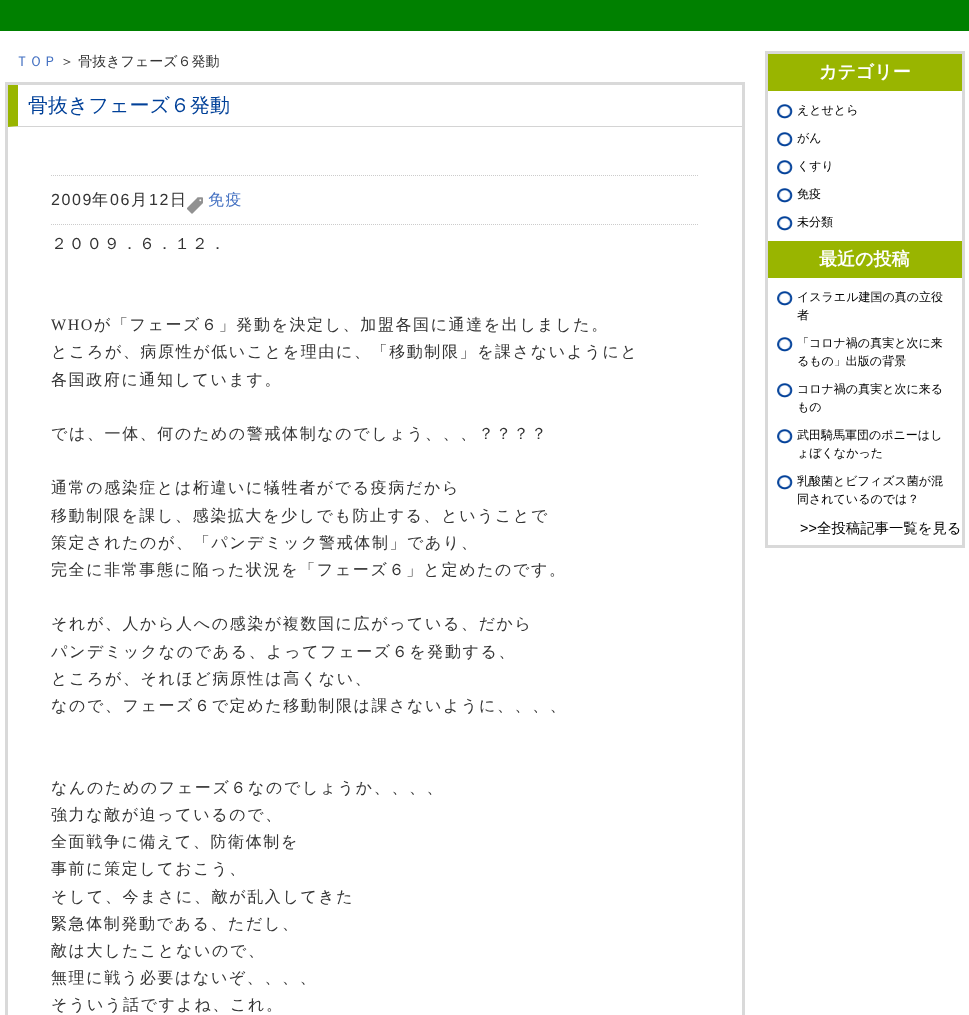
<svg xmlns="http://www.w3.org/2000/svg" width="969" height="1015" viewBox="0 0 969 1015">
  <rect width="100%" height="100%" fill="#fff"/>
  <path d="M0 0h969v31H0z" fill="#008000"/>
  <path d="M6.5 83.5h737v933H6.5z" fill="none" stroke="#d9d9d9" stroke-width="3"/>
  <path d="M742 127H8L18 126H742Z" fill="#d4d4d4"/>
  <path d="M8 127V85H18V126Z" fill="#99b500"/>
  <path d="M51 175.5H699" fill="none" stroke="#ccc" stroke-dasharray="1 1"/>
  <path d="M51 224.5H699" fill="none" stroke="#ccc" stroke-dasharray="1 1"/>
  <image x="187" y="197" width="16" height="17" href="img/1.png"/>
  <path d="M766.5 52.5h197v494H766.5z" fill="none" stroke="#d9d9d9" stroke-width="3"/>
  <path d="M768 54h194v37H768z" fill="#99b500"/>
  <image x="777" y="104" width="16" height="15" href="img/2.png"/>
  <image x="777" y="132" width="16" height="15" href="img/2.png"/>
  <image x="777" y="160" width="16" height="15" href="img/2.png"/>
  <image x="777" y="188" width="16" height="15" href="img/2.png"/>
  <image x="777" y="216" width="16" height="15" href="img/2.png"/>
  <path d="M768 241h194v37H768z" fill="#99b500"/>
  <image x="777" y="291" width="16" height="15" href="img/2.png"/>
  <image x="777" y="337" width="16" height="15" href="img/2.png"/>
  <image x="777" y="383" width="16" height="15" href="img/2.png"/>
  <image x="777" y="429" width="16" height="15" href="img/2.png"/>
  <image x="777" y="475" width="16" height="15" href="img/2.png"/>
  <text x="15" y="66" font-family="WenQuanYi Zen Hei" font-size="14" font-weight="500" fill="#4471c2">ＴＯＰ</text>
  <text x="60" y="66" font-family="WenQuanYi Zen Hei" font-size="14" font-weight="500" fill="#333">＞ 骨抜きフェーズ６発動</text>
  <text x="28" y="112" font-family="WenQuanYi Zen Hei" font-size="20" font-weight="500" fill="#004098">骨抜きフェーズ６発動</text>
  <text x="51" y="205" font-family="Liberation Sans" font-size="16" letter-spacing="1.6" fill="#333">2009</text>
  <text x="92" y="205" font-family="WenQuanYi Zen Hei" font-size="16" font-weight="500" letter-spacing="1.6" fill="#333">年</text>
  <text x="110" y="205" font-family="Liberation Sans" font-size="16" letter-spacing="1.6" fill="#333">06</text>
  <text x="131" y="205" font-family="WenQuanYi Zen Hei" font-size="16" font-weight="500" letter-spacing="1.6" fill="#333">月</text>
  <text x="149" y="205" font-family="Liberation Sans" font-size="16" letter-spacing="1.6" fill="#333">12</text>
  <text x="170" y="205" font-family="WenQuanYi Zen Hei" font-size="16" font-weight="500" letter-spacing="1.6" fill="#333">日</text>
  <text x="208" y="205" font-family="WenQuanYi Zen Hei" font-size="16" font-weight="500" letter-spacing="1.6" fill="#4471c2">免疫</text>
  <text x="51" y="249" font-family="WenQuanYi Zen Hei" font-size="16" font-weight="500" letter-spacing="1.6" fill="#333">２００９．６．１２．</text>
  <text x="51" y="330" font-family="Liberation Serif" font-size="16" letter-spacing="1.6" fill="#333">WHO</text>
  <g font-family="WenQuanYi Zen Hei" font-size="16" font-weight="500" letter-spacing="1.6" fill="#333">
    <text x="94" y="330">が「フェーズ６」発動を決定し、加盟各国に通達を出しました。</text>
    <text x="51" y="357">ところが、病原性が低いことを理由に、「移動制限」を課さないようにと</text>
    <text x="51" y="385">各国政府に通知しています。</text>
    <text x="51" y="439">では、一体、何のための警戒体制なのでしょう、、、？？？？</text>
    <text x="51" y="493">通常の感染症とは桁違いに犠牲者がでる疫病だから</text>
    <text x="51" y="521">移動制限を課し、感染拡大を少しでも防止する、ということで</text>
    <text x="51" y="548">策定されたのが、「パンデミック警戒体制」であり、</text>
    <text x="51" y="575">完全に非常事態に陥った状況を「フェーズ６」と定めたのです。</text>
    <text x="51" y="629">それが、人から人への感染が複数国に広がっている、だから</text>
    <text x="51" y="657">パンデミックなのである、よってフェーズ６を発動する、</text>
    <text x="51" y="684">ところが、それほど病原性は高くない、</text>
    <text x="51" y="711">なので、フェーズ６で定めた移動制限は課さないように、、、、</text>
    <text x="51" y="793">なんのためのフェーズ６なのでしょうか、、、、</text>
    <text x="51" y="820">強力な敵が迫っているので、</text>
    <text x="51" y="847">全面戦争に備えて、防衛体制を</text>
    <text x="51" y="874">事前に策定しておこう、</text>
    <text x="51" y="902">そして、今まさに、敵が乱入してきた</text>
    <text x="51" y="929">緊急体制発動である、ただし、</text>
    <text x="51" y="956">敵は大したことないので、</text>
    <text x="51" y="983">無理に戦う必要はないぞ、、、、</text>
    <text x="51" y="1010">そういう話ですよね、これ。</text>
  </g>
  <text x="819" y="78" font-family="WenQuanYi Zen Hei" font-size="18" font-weight="bold" fill="#fff">カテゴリー</text>
  <g font-family="WenQuanYi Zen Hei" font-size="12" font-weight="500" fill="#000">
    <text x="797" y="114">えとせとら</text>
    <text x="797" y="142">がん</text>
    <text x="797" y="170">くすり</text>
    <text x="797" y="198">免疫</text>
    <text x="797" y="226">未分類</text>
  </g>
  <text x="819" y="265" font-family="WenQuanYi Zen Hei" font-size="18" font-weight="bold" fill="#fff">最近の投稿</text>
  <g font-family="WenQuanYi Zen Hei" font-size="12" font-weight="500" fill="#000">
    <text x="797" y="301">イスラエル建国の真の立役</text>
    <text x="797" y="319">者</text>
    <text x="797" y="347">「コロナ禍の真実と次に来</text>
    <text x="797" y="365">るもの」出版の背景</text>
    <text x="797" y="393">コロナ禍の真実と次に来る</text>
    <text x="797" y="411">もの</text>
    <text x="797" y="439">武田騎馬軍団のポニーはし</text>
    <text x="797" y="457">ょぼくなかった</text>
    <text x="797" y="485">乳酸菌とビフィズス菌が混</text>
    <text x="797" y="503">同されているのでは？</text>
  </g>
  <text x="800" y="533" font-family="Liberation Sans" font-size="14.4" fill="#000">&gt;&gt;</text>
  <text x="817" y="533" font-family="WenQuanYi Zen Hei" font-size="14.4" font-weight="500" fill="#000">全投稿記事一覧を見る</text>
</svg>
